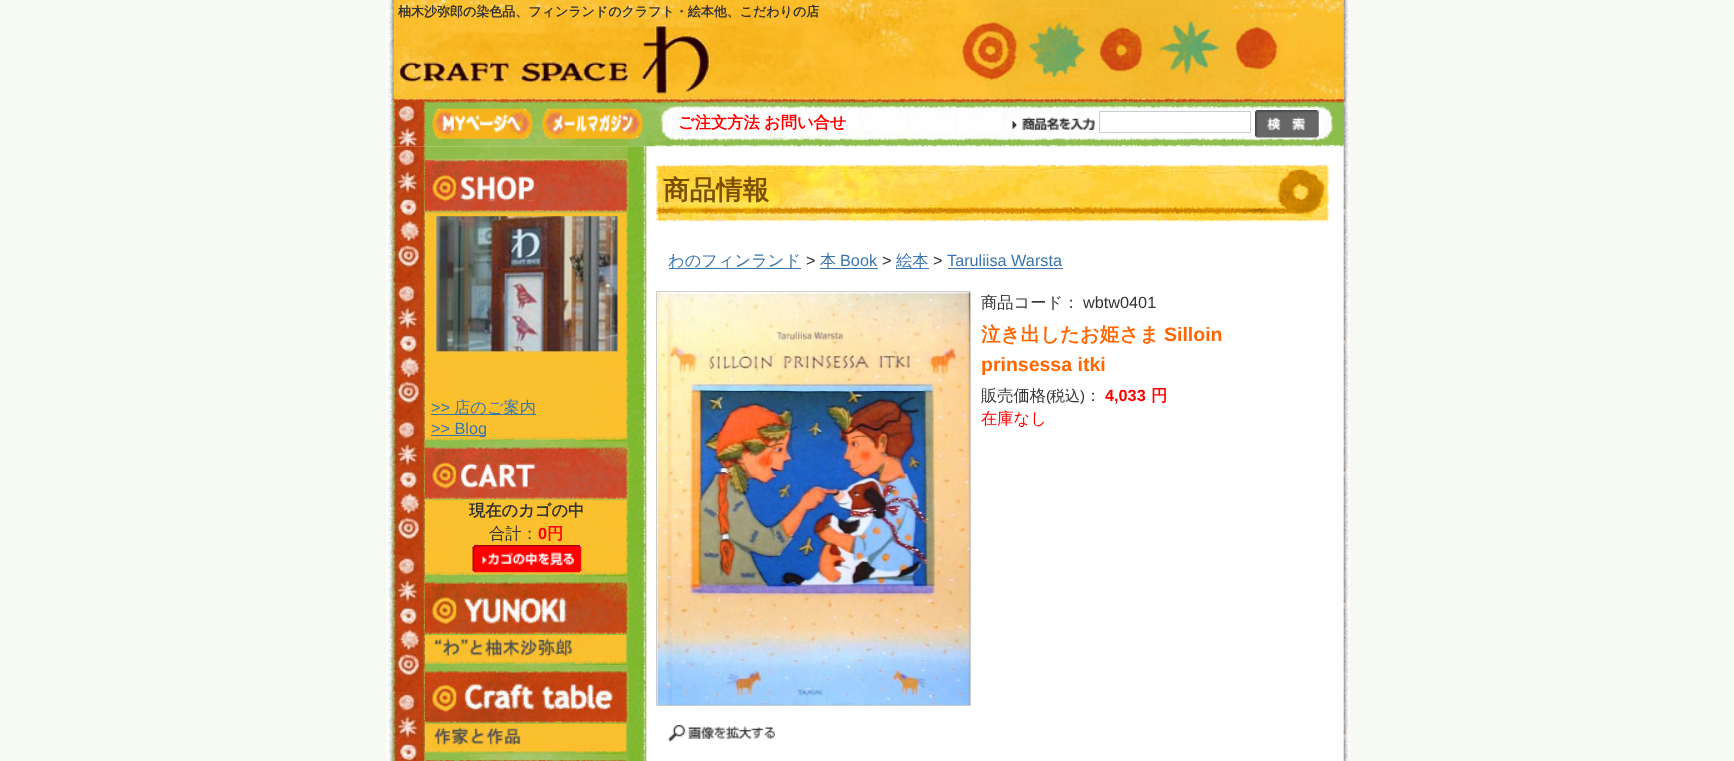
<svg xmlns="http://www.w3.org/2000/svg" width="1734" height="761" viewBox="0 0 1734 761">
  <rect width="100%" height="100%" fill="#f7faf3"/>
  <image x="386" y="0" width="964" height="761" href="img/1.png"/>
  <image x="386" y="0" width="964" height="99" href="img/2.png"/>
  <image x="398" y="25" width="312" height="69" href="img/3.png"/>
  <image x="386" y="98" width="964" height="49" href="img/4.png"/>
  <image x="432" y="108" width="101" height="31" href="img/5.png"/>
  <image x="542" y="108" width="101" height="31" href="img/6.png"/>
  <image x="1012" y="117" width="83" height="13" href="img/7.png"/>
  <path d="M1099.5 111.5h151v21H1099.5z" fill="#fff" stroke="#ccc"/>
  <image x="1255" y="110" width="64" height="28" href="img/8.png"/>
  <image x="392" y="146" width="255" height="615" href="img/9.png"/>
  <image x="656" y="165" width="673" height="57" href="img/10.png"/>
  <path d="M669 268h132v1H669z" fill="#3a75af"/>
  <path d="M820 268h58v1H820z" fill="#3a75af"/>
  <path d="M896 268h33v1H896z" fill="#3a75af"/>
  <path d="M948 268h115v1H948z" fill="#3a75af"/>
  <path d="M656.5 291.5h314v414H656.5z" fill="none" stroke="#ccc"/>
  <image x="657" y="292" width="313" height="413" href="img/11.png"/>
  <image x="668" y="725" width="107" height="17" href="img/12.png"/>
  <image x="425" y="212" width="204" height="226" href="img/14.png"/>
  <image x="425" y="158" width="204" height="55" href="img/13.png"/>
  <image x="436" y="216" width="182" height="137" href="img/15.png"/>
  <path d="M431 414h105v1H431z" fill="#3a75af"/>
  <path d="M431 435h55v1H431z" fill="#3a75af"/>
  <image x="425" y="447" width="204" height="53" href="img/17.png"/>
  <image x="425" y="500" width="204" height="73" href="img/18.png"/>
  <image x="472" y="545" width="110" height="28" href="img/19.png"/>
  <image x="425" y="572" width="204" height="5" href="img/20.png"/>
  <image x="425" y="582" width="204" height="53" href="img/21.png"/>
  <image x="425" y="635" width="202" height="27" href="img/22.png"/>
  <image x="425" y="661" width="204" height="4" href="img/23.png"/>
  <image x="425" y="671" width="204" height="53" href="img/24.png"/>
  <image x="425" y="723" width="202" height="27" href="img/25.png"/>
  <image x="425" y="750" width="204" height="4" href="img/26.png"/>
  <image x="425" y="760" width="204" height="1" href="img/27.png"/>
  <text x="398" y="16" font-family="WenQuanYi Zen Hei" font-size="13" font-weight="bold" fill="#333">柚木沙弥郎の染色品、フィンランドのクラフト・絵本他、こだわりの店</text>
  <g font-family="WenQuanYi Zen Hei" font-size="16.25" font-weight="bold" fill="#f00">
    <text x="678" y="128">ご注文方法</text>
    <text x="764" y="128">お問い合せ</text>
  </g>
  <text x="663" y="199" font-family="WenQuanYi Zen Hei" font-size="26.5" font-weight="bold" fill="#7a4f00">商品情報</text>
  <text x="668" y="266" font-family="WenQuanYi Zen Hei" font-size="16.25" font-weight="500" fill="#3a75af">わのフィンランド</text>
  <text x="806" y="266" font-family="Liberation Sans" font-size="16.25" fill="#333">&gt;</text>
  <text x="820" y="266" font-family="WenQuanYi Zen Hei" font-size="16.25" font-weight="500" fill="#3a75af">本</text>
  <text x="840" y="266" font-family="Liberation Sans" font-size="16.25" fill="#3a75af">Book</text>
  <text x="882" y="266" font-family="Liberation Sans" font-size="16.25" fill="#333">&gt;</text>
  <text x="896" y="266" font-family="WenQuanYi Zen Hei" font-size="16.25" font-weight="500" fill="#3a75af">絵本</text>
  <text x="933" y="266" font-family="Liberation Sans" font-size="16.25" fill="#333">&gt;</text>
  <text x="947" y="266" font-family="Liberation Sans" font-size="16.25" fill="#3a75af">Taruliisa Warsta</text>
  <text x="981" y="308" font-family="WenQuanYi Zen Hei" font-size="16.25" font-weight="500" fill="#333">商品コード：</text>
  <text x="1083" y="308" font-family="Liberation Sans" font-size="16.25" fill="#333">wbtw0401</text>
  <text x="981" y="341" font-family="WenQuanYi Zen Hei" font-size="19.5" font-weight="bold" fill="#f60">泣き出したお姫さま</text>
  <g font-family="Liberation Sans" font-size="19.5" font-weight="bold" fill="#f60">
    <text x="1164" y="341">Silloin</text>
    <text x="981" y="371">prinsessa itki</text>
  </g>
  <text x="981" y="401" font-family="WenQuanYi Zen Hei" font-size="16.25" font-weight="500" fill="#333">販売価格</text>
  <text x="1046" y="401" font-family="Liberation Sans" font-size="15" fill="#333">(</text>
  <text x="1050" y="401" font-family="WenQuanYi Zen Hei" font-size="15" font-weight="500" fill="#333">税込</text>
  <text x="1080" y="401" font-family="Liberation Sans" font-size="15" fill="#333">)</text>
  <text x="1085" y="401" font-family="WenQuanYi Zen Hei" font-size="16.25" font-weight="500" fill="#333">：</text>
  <text x="1105" y="401" font-family="Liberation Sans" font-size="16.25" font-weight="bold" fill="#f00">4,033</text>
  <text x="1151" y="401" font-family="WenQuanYi Zen Hei" font-size="16.25" font-weight="bold" fill="#f00">円</text>
  <text x="981" y="424" font-family="WenQuanYi Zen Hei" font-size="16.25" font-weight="500" fill="#f00">在庫なし</text>
  <text x="431" y="413" font-family="Liberation Sans" font-size="16.25" fill="#3a75af">&gt;&gt;</text>
  <text x="454" y="413" font-family="WenQuanYi Zen Hei" font-size="16.25" font-weight="500" fill="#3a75af">店のご案内</text>
  <text x="431" y="434" font-family="Liberation Sans" font-size="16.25" fill="#3a75af">&gt;&gt; Blog</text>
  <image x="425" y="437" width="204" height="5" href="img/16.png"/>
  <text x="469" y="516" font-family="WenQuanYi Zen Hei" font-size="16.25" font-weight="bold" fill="#333">現在のカゴの中</text>
  <text x="489" y="539" font-family="WenQuanYi Zen Hei" font-size="16.25" font-weight="500" fill="#333">合計：</text>
  <text x="538" y="539" font-family="Liberation Sans" font-size="16.25" font-weight="bold" fill="#f00">0</text>
  <text x="547" y="539" font-family="WenQuanYi Zen Hei" font-size="16.25" font-weight="bold" fill="#f00">円</text>
</svg>
